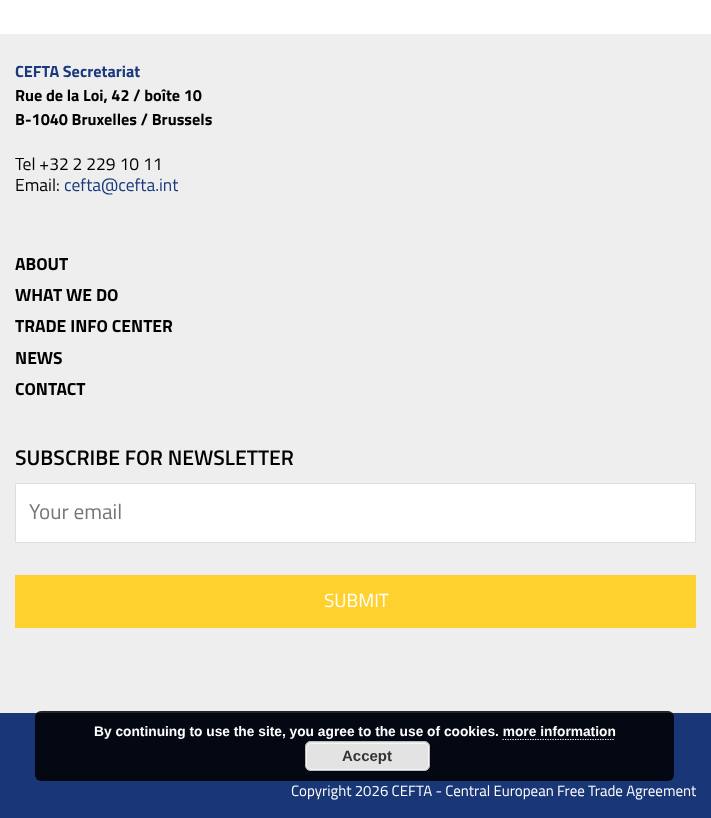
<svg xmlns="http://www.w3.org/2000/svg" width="711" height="818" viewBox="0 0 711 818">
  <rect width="100%" height="100%" fill="#fff"/>
  <path d="M0 34h711v679H0z" fill="#eee"/>
  <path d="M15.5 483.5h680v59H15.5z" fill="#fff" stroke="#dedede"/>
  <path d="M15 575h681v53H15z" fill="#ffd12e"/>
  <path d="M0 713h711v105H0z" fill="#193677"/>
  <rect x="35" y="711" width="639" height="70" rx="6" fill="#000000d9"/>
  <path d="M502.5 739.5H615" fill="none" stroke="#fff" stroke-width="1.2" stroke-dasharray="1.25 1.25"/>
  <rect x="305" y="741" width="125" height="30" rx="6" fill="#e3e3e3"/>
  <rect x="306.5" y="743.5" width="122" height="26" rx="4.5" fill="none" stroke="#f6f6f6"/>
  <rect x="305.5" y="741.5" width="124" height="29" rx="5.5" fill="none" stroke="#bbb"/>
  <text x="15" y="77" font-family="Titillium Web" font-size="16.25" font-weight="bold" fill="#1a3a7d">CEFTA Secretariat</text>
  <g font-family="Titillium Web" font-size="16.25" font-weight="bold" fill="#000">
    <text x="15" y="101">Rue de la Loi, 42 / boîte 10</text>
    <text x="15" y="125">B-1040 Bruxelles / Brussels</text>
  </g>
  <g font-family="Titillium Web" font-size="17.5" fill="#000">
    <text x="15" y="170">Tel +32 2 229 10 11</text>
    <text x="15" y="191">Email:</text>
  </g>
  <text x="64" y="191" font-family="Titillium Web" font-size="17.5" fill="#1a3a7d">cefta@cefta.int</text>
  <g font-family="Titillium Web" font-size="17.5" font-weight="bold" fill="#000">
    <text x="15" y="270">ABOUT</text>
    <text x="15" y="301">WHAT WE DO</text>
    <text x="15" y="332">TRADE INFO CENTER</text>
    <text x="15" y="364">NEWS</text>
    <text x="15" y="395">CONTACT</text>
  </g>
  <text x="15" y="465" font-family="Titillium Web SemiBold" font-size="21.25" font-weight="600" fill="#000">SUBSCRIBE FOR NEWSLETTER</text>
  <text x="29" y="519" font-family="Titillium Web" font-size="21.25" fill="#757575">Your email</text>
  <text x="324" y="607" font-family="Titillium Web" font-size="19" fill="#fff">SUBMIT</text>
  <text x="94" y="736" font-family="Liberation Sans" font-size="13.75" font-weight="bold" fill="#fff">By continuing to use the site, you agree to the use of cookies. more information</text>
  <text x="342" y="761" font-family="Liberation Sans" font-size="15" font-weight="bold" fill="#333">Accept</text>
  <text x="291" y="796" font-family="Titillium Web" font-size="15" fill="#fff">Copyright 2026 CEFTA - Central European Free Trade Agreement</text>
</svg>
